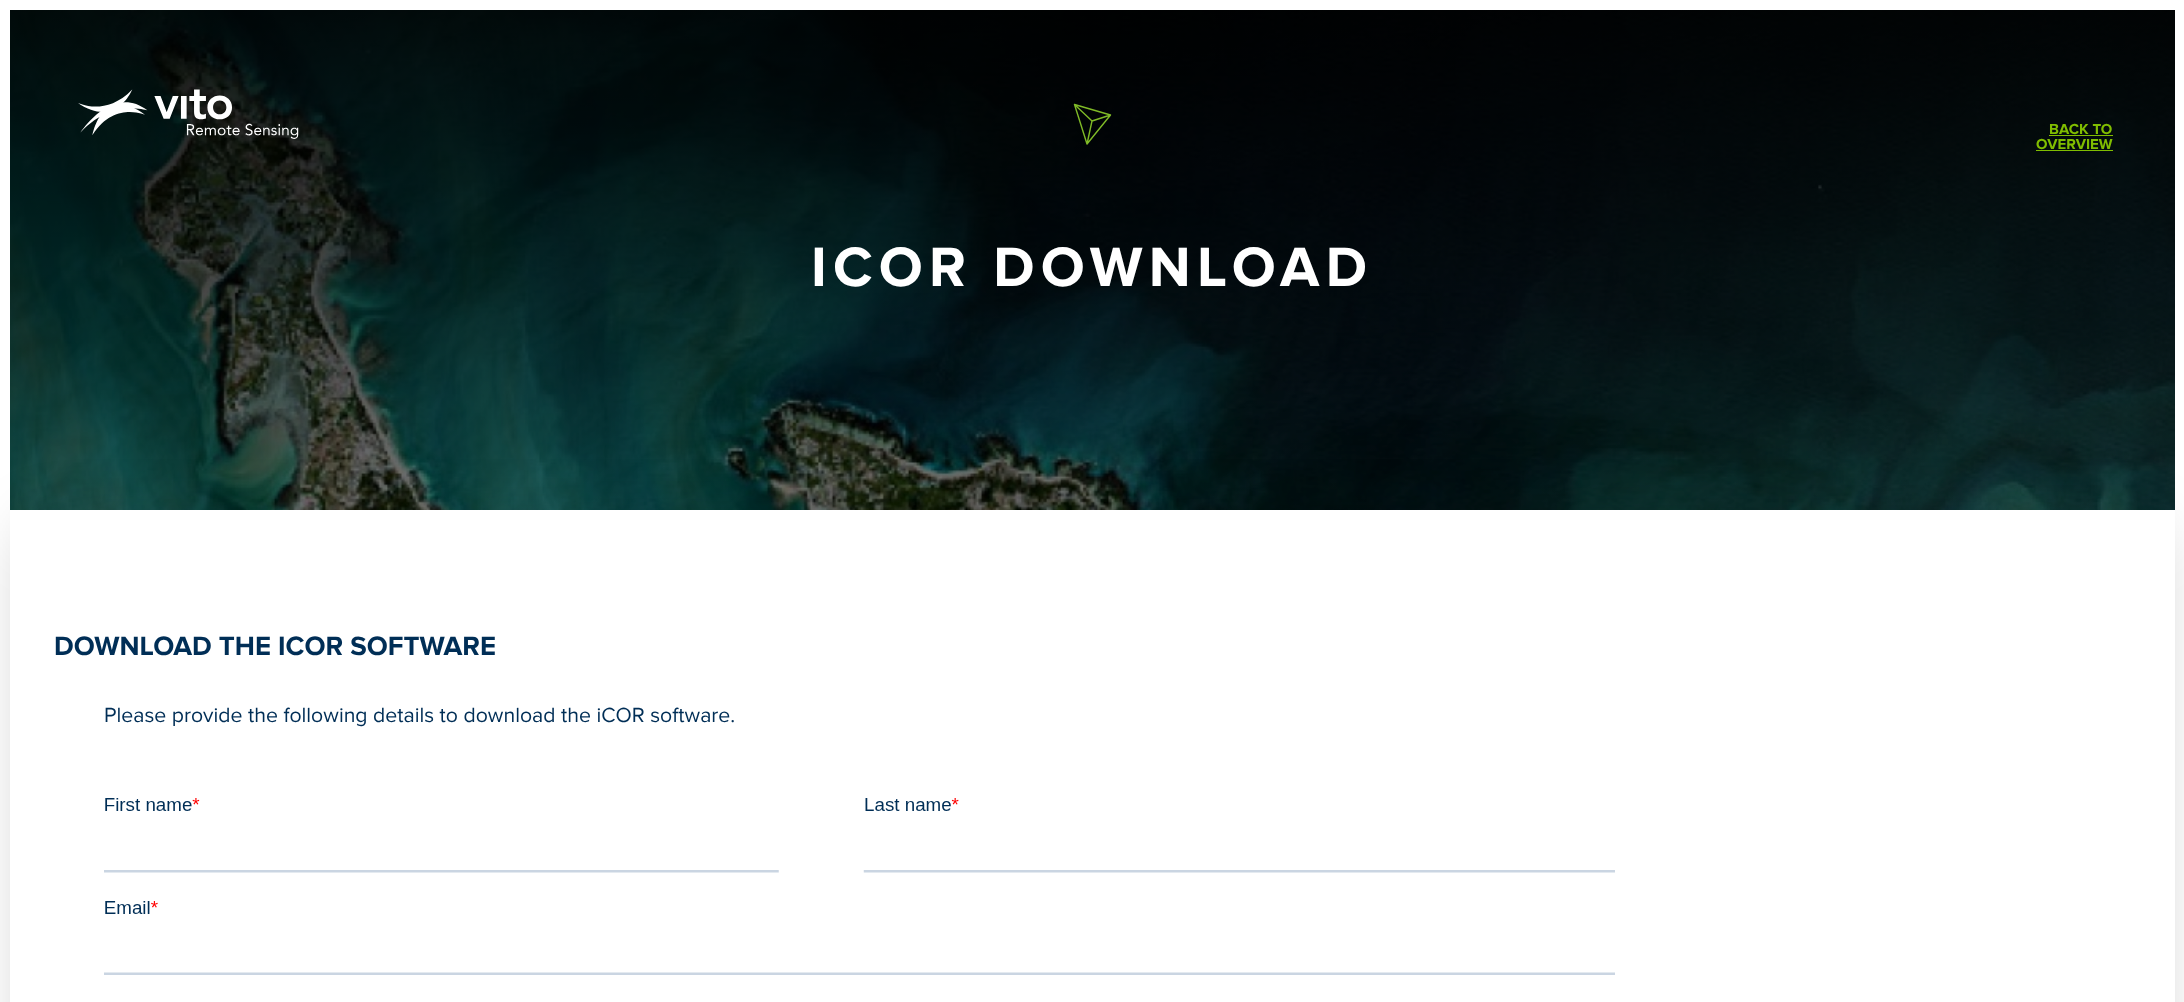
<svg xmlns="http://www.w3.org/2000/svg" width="2184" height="1002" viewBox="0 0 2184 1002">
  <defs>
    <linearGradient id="g1" gradientUnits="userSpaceOnUse" x1="1093" y1="10" x2="1093" y2="573"><stop offset="0" stop-color="#000" stop-opacity="0.85"/><stop offset="1" stop-color="#000" stop-opacity="0"/></linearGradient>
  </defs>
  <rect width="100%" height="100%" fill="#fff"/>
  <image x="10" y="10" width="2165" height="500" href="img/1.png"/>
  <path d="M10 10h2165v500H10z" fill="url(#g1)"/>
  <image x="78" y="89" width="221" height="50" href="img/2.png"/>
  <path d="M1087 144L1092 121L1110.5 115ZM1092 121L1074.5 104.5L1110.5 115ZM1074.5 104.5L1092 121L1087 144Z" fill="none" stroke="#7fba27" stroke-width="1.4" stroke-linecap="round" stroke-linejoin="round"/>
  <path d="M2049 135h64v1H2049z" fill="#80bd01"/>
  <path d="M2036 150h77v1H2036z" fill="#80bd01"/>
  <path d="M35 531h2115v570H35z" fill="#0000004d" filter="blur(33px)"/>
  <path d="M10 510h2165v492H10z" fill="#fff"/>
  <image x="104" y="798" width="1511" height="177" href="img/3.png"/>
  <g font-family="Proxima Nova" font-size="15" font-weight="bold" fill="#80bd01">
    <text x="2049" y="134">BACK TO</text>
    <text x="2036" y="149">OVERVIEW</text>
  </g>
  <text x="811" y="286" font-family="Proxima Nova" font-size="57.5" font-weight="bold" letter-spacing="6.25" fill="#fff">ICOR DOWNLOAD</text>
  <text x="54" y="655" font-family="Proxima Nova" font-size="27.5" font-weight="bold" fill="#002e56">DOWNLOAD THE ICOR SOFTWARE</text>
  <text x="104" y="722" font-family="Proxima Nova" font-size="21.25" fill="#002e56">Please provide the following details to download the iCOR software.</text>
</svg>
